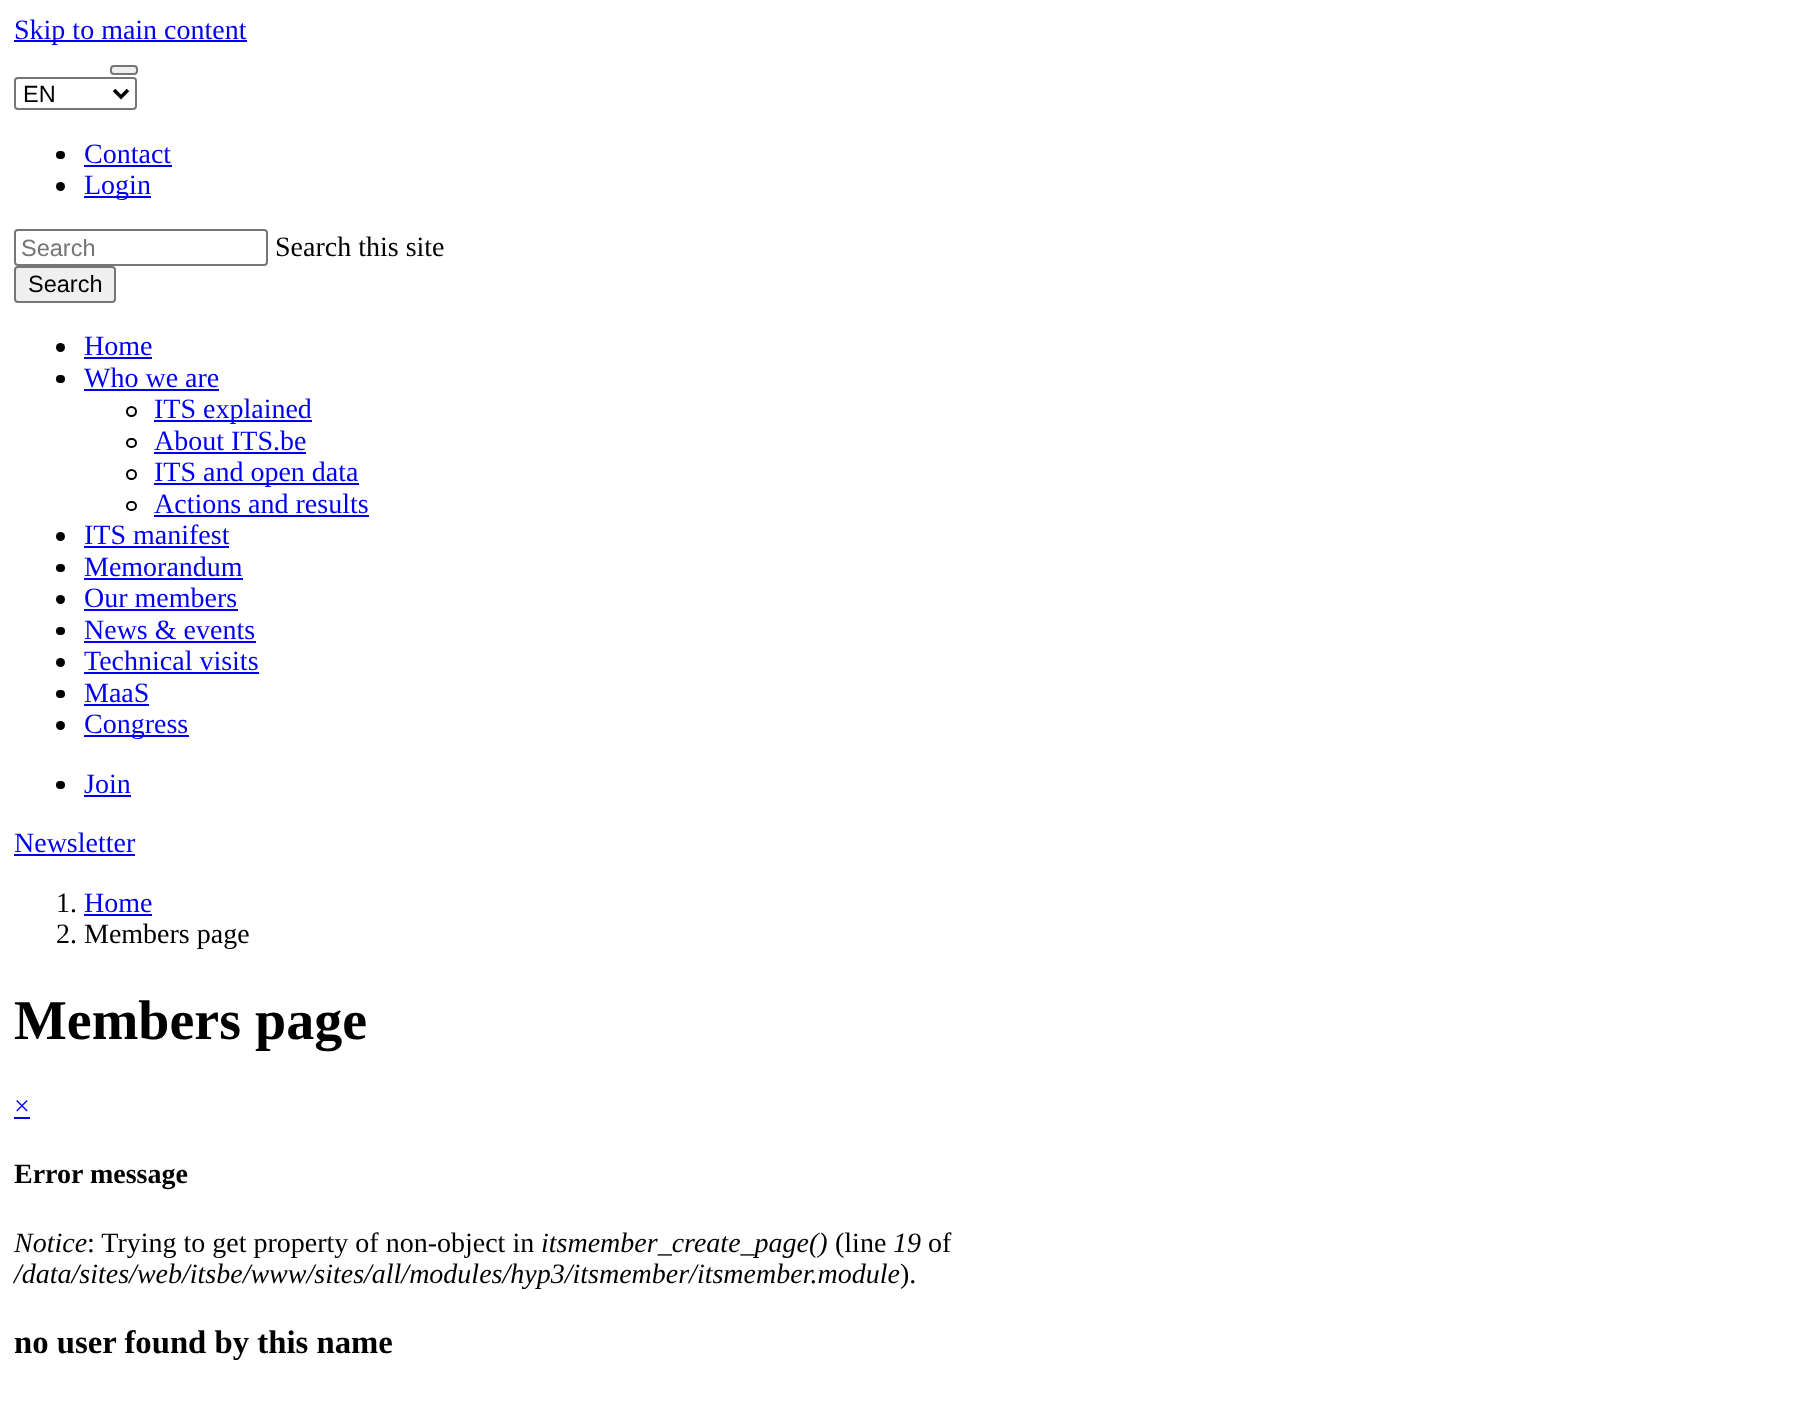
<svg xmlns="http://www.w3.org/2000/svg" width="1811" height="1403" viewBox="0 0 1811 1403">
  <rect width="100%" height="100%" fill="#fff"/>
  <path d="M14 40h233v2H14z" fill="#00e"/>
  <rect x="111" y="66" width="26" height="8" rx="3" fill="#efefef" stroke="#767676" stroke-width="2"/>
  <rect x="15" y="78" width="121" height="31" rx="3" fill="none" stroke="#767676" stroke-width="2"/>
  <path d="M114 90L121 97L128 90" fill="none" stroke="#000" stroke-width="3.5"/>
  <rect x="56" y="151" width="9" height="8" rx="4" fill="#000"/>
  <path d="M84 165h88v2H84z" fill="#00e"/>
  <circle cx="60.5" cy="186.5" r="4.5" fill="#000"/>
  <path d="M84 196h67v2H84z" fill="#00e"/>
  <rect x="15" y="230" width="252" height="35" rx="3" fill="none" stroke="#767676" stroke-width="2"/>
  <rect x="15" y="267" width="100" height="35" rx="3" fill="#efefef" stroke="#767676" stroke-width="2"/>
  <circle cx="60.5" cy="347.5" r="4.5" fill="#000"/>
  <path d="M84 357h68v2H84z" fill="#00e"/>
  <rect x="56" y="375" width="9" height="8" rx="4" fill="#000"/>
  <path d="M84 389h135v2H84z" fill="#00e"/>
  <circle cx="131.5" cy="411.5" r="4.5" fill="none" stroke="#000" stroke-width="2"/>
  <path d="M154 420h158v2H154z" fill="#00e"/>
  <rect x="127" y="439" width="9" height="8" rx="4" fill="none" stroke="#000" stroke-width="2"/>
  <path d="M154 452h152v2H154z" fill="#00e"/>
  <circle cx="131.5" cy="474.5" r="4.5" fill="none" stroke="#000" stroke-width="2"/>
  <path d="M154 483h205v2H154z" fill="#00e"/>
  <rect x="127" y="502" width="9" height="8" rx="4" fill="none" stroke="#000" stroke-width="2"/>
  <path d="M154 515h215v2H154z" fill="#00e"/>
  <circle cx="60.5" cy="536.5" r="4.5" fill="#000"/>
  <path d="M84 546h145v2H84z" fill="#00e"/>
  <rect x="56" y="564" width="9" height="8" rx="4" fill="#000"/>
  <path d="M84 578h159v2H84z" fill="#00e"/>
  <circle cx="60.5" cy="599.5" r="4.5" fill="#000"/>
  <path d="M84 609h154v2H84z" fill="#00e"/>
  <rect x="56" y="627" width="9" height="8" rx="4" fill="#000"/>
  <path d="M84 641h172v2H84z" fill="#00e"/>
  <circle cx="60.5" cy="662.5" r="4.5" fill="#000"/>
  <path d="M84 672h175v2H84z" fill="#00e"/>
  <rect x="56" y="690" width="9" height="8" rx="4" fill="#000"/>
  <path d="M84 704h65v2H84z" fill="#00e"/>
  <circle cx="60.5" cy="725.5" r="4.5" fill="#000"/>
  <path d="M84 735h105v2H84z" fill="#00e"/>
  <rect x="56" y="781" width="9" height="8" rx="4" fill="#000"/>
  <path d="M84 795h47v2H84z" fill="#00e"/>
  <path d="M14 854h121v2H14z" fill="#00e"/>
  <path d="M84 914h68v2H84z" fill="#00e"/>
  <path d="M14 1117h16v2H14z" fill="#00e"/>
  <text x="14" y="39" font-family="Liberation Serif" font-size="28" fill="#00e">Skip to main content</text>
  <text x="23" y="102" font-family="Liberation Sans" font-size="23.5" fill="#000">EN</text>
  <g font-family="Liberation Serif" font-size="28" fill="#00e">
    <text x="84" y="163">Contact</text>
    <text x="84" y="194">Login</text>
  </g>
  <text x="21" y="256" font-family="Liberation Sans" font-size="23.5" fill="#757575">Search</text>
  <text x="275" y="256" font-family="Liberation Serif" font-size="28" fill="#000">Search this site</text>
  <text x="28" y="292" font-family="Liberation Sans" font-size="23.5" fill="#000">Search</text>
  <g font-family="Liberation Serif" font-size="28" fill="#00e">
    <text x="84" y="355">Home</text>
    <text x="84" y="387">Who we are</text>
    <text x="154" y="418">ITS explained</text>
    <text x="154" y="450">About ITS.be</text>
    <text x="154" y="481">ITS and open data</text>
    <text x="154" y="513">Actions and results</text>
    <text x="84" y="544">ITS manifest</text>
    <text x="84" y="576">Memorandum</text>
    <text x="84" y="607">Our members</text>
    <text x="84" y="639">News &amp; events</text>
    <text x="84" y="670">Technical visits</text>
    <text x="84" y="702">MaaS</text>
    <text x="84" y="733">Congress</text>
    <text x="84" y="793">Join</text>
    <text x="14" y="852">Newsletter</text>
  </g>
  <text x="56" y="912" font-family="Liberation Serif" font-size="28" fill="#000">1.</text>
  <text x="84" y="912" font-family="Liberation Serif" font-size="28" fill="#00e">Home</text>
  <text x="56" y="943" font-family="Liberation Serif" font-size="28" fill="#000">2. Members page</text>
  <text x="14" y="1039" font-family="Liberation Serif" font-size="56" font-weight="bold" fill="#000">Members page</text>
  <text x="14" y="1115" font-family="Liberation Serif" font-size="28" fill="#00e">×</text>
  <text x="14" y="1183" font-family="Liberation Serif" font-size="28" font-weight="bold" fill="#000">Error message</text>
  <text x="14" y="1252" font-family="Liberation Serif" font-size="28" font-style="italic" fill="#000">Notice</text>
  <text x="87" y="1252" font-family="Liberation Serif" font-size="28" fill="#000">: Trying to get property of non-object in</text>
  <text x="541" y="1252" font-family="Liberation Serif" font-size="28" font-style="italic" fill="#000">itsmember_create_page()</text>
  <text x="835" y="1252" font-family="Liberation Serif" font-size="28" fill="#000">(line</text>
  <text x="893" y="1252" font-family="Liberation Serif" font-size="28" font-style="italic" fill="#000">19</text>
  <text x="928" y="1252" font-family="Liberation Serif" font-size="28" fill="#000">of</text>
  <text x="14" y="1283" font-family="Liberation Serif" font-size="28" font-style="italic" fill="#000">/data/sites/web/itsbe/www/sites/all/modules/hyp3/itsmember/itsmember.module</text>
  <text x="900" y="1283" font-family="Liberation Serif" font-size="28" fill="#000">).</text>
  <text x="14" y="1353" font-family="Liberation Serif" font-size="32.75" font-weight="bold" fill="#000">no user found by this name</text>
</svg>
